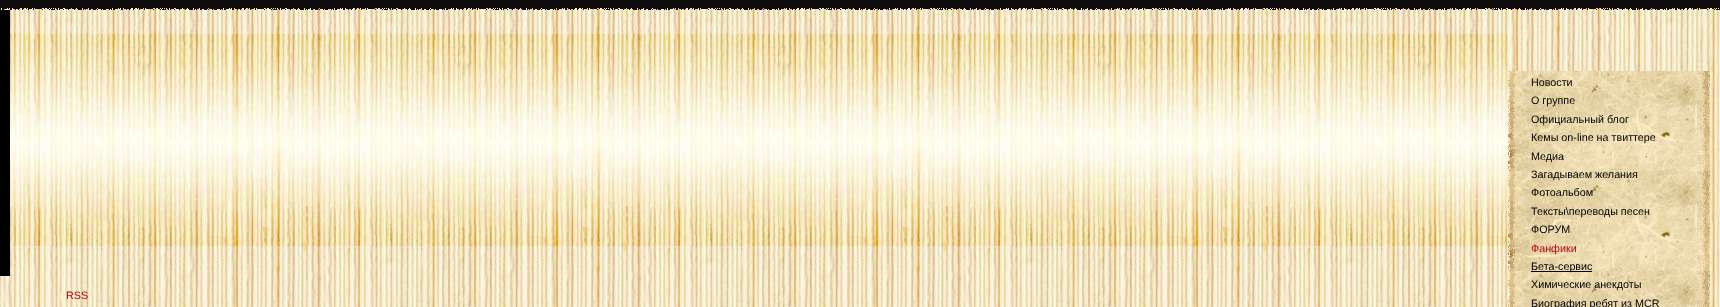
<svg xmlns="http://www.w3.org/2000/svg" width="1720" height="307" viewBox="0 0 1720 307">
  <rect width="100%" height="100%" fill="#fff"/>
  <image x="0" y="8" width="1720" height="299" href="img/1.png"/>
  <image x="0" y="0" width="1720" height="10" href="img/2.png"/>
  <path d="M0 10h10v266H0z" fill="#000"/>
  <image x="10" y="10" width="1498" height="240" href="img/3.png"/>
  <image x="1508" y="71" width="202" height="236" href="img/4.png"/>
  <path d="M1531 271h61v1H1531z" fill="#000"/>
  <text x="60" y="299" font-family="Liberation Sans" font-size="10.75" fill="#fffadf">|</text>
  <text x="66" y="299" font-family="Liberation Sans" font-size="10.75" fill="#ad090e">RSS</text>
  <g font-family="Liberation Sans" font-size="10.75" fill="#000">
    <text x="1531" y="86">Новости</text>
    <text x="1531" y="104">О группе</text>
    <text x="1531" y="123">Официальный блог</text>
    <text x="1531" y="141">Кемы on-line на твиттере</text>
    <text x="1531" y="160">Медиа</text>
    <text x="1531" y="178">Загадываем желания</text>
    <text x="1531" y="196">Фотоальбом</text>
    <text x="1531" y="215">Тексты\переводы песен</text>
    <text x="1531" y="233">ФОРУМ</text>
  </g>
  <text x="1531" y="252" font-family="Liberation Sans" font-size="10.75" fill="#ad090e">Фанфики</text>
  <g font-family="Liberation Sans" font-size="10.75" fill="#000">
    <text x="1531" y="270">Бета-сервис</text>
    <text x="1531" y="288">Химические анекдоты</text>
    <text x="1531" y="307">Биография ребят из MCR</text>
  </g>
</svg>
